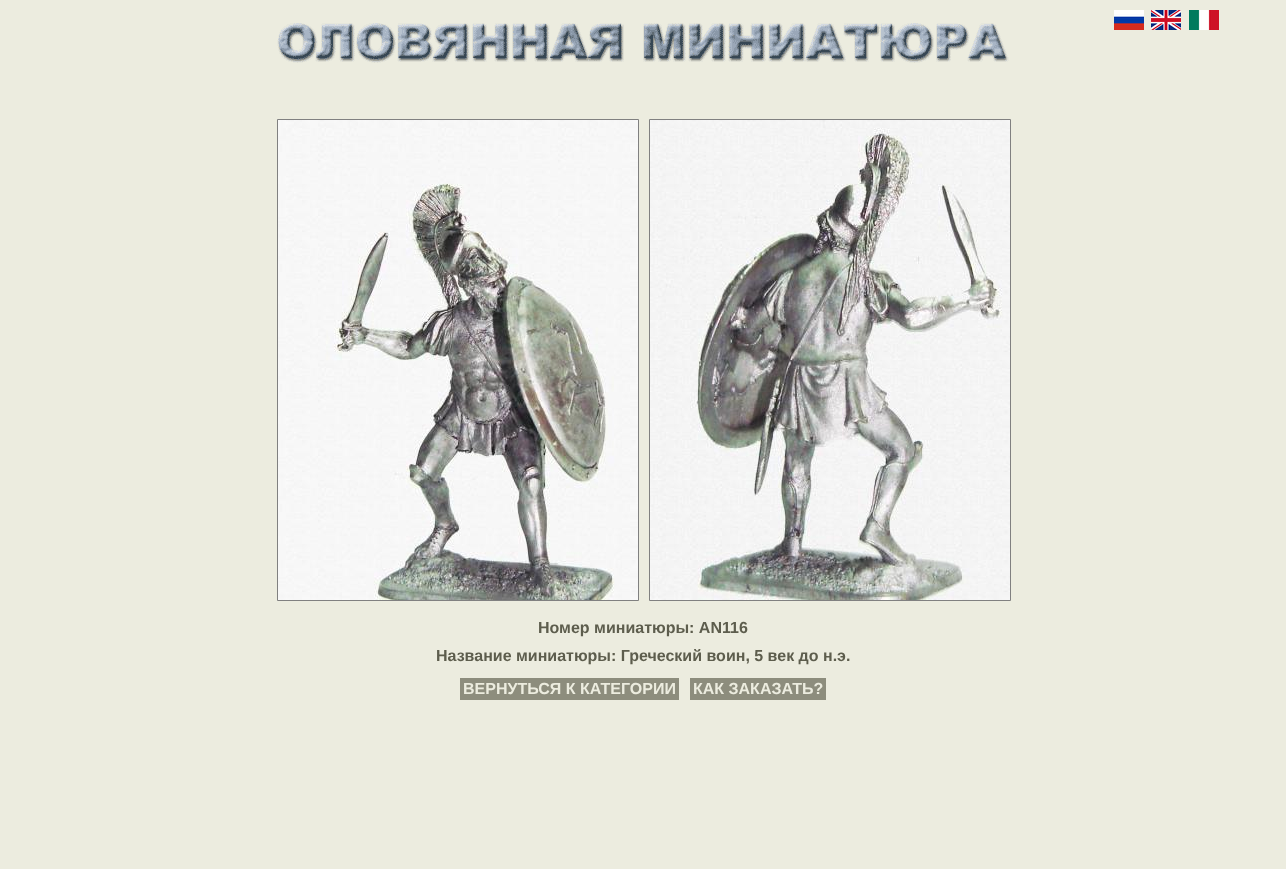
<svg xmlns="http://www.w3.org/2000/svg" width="1286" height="869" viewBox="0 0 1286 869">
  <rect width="100%" height="100%" fill="#ececdf"/>
  <image x="1114" y="10" width="30" height="20" href="img/1.png"/>
  <image x="1151" y="10" width="30" height="20" href="img/2.png"/>
  <image x="1189" y="10" width="30" height="20" href="img/3.png"/>
  <image x="277" y="23" width="732" height="40" href="img/4.png"/>
  <path d="M277.5 119.5h361v481H277.5z" fill="none" stroke="#808080"/>
  <image x="278" y="120" width="360" height="480" href="img/5.png"/>
  <path d="M649.5 119.5h361v481H649.5z" fill="none" stroke="#808080"/>
  <image x="650" y="120" width="360" height="480" href="img/6.png"/>
  <path d="M460 678h219v22H460z" fill="#8d8d7d"/>
  <path d="M690 678h136v22H690z" fill="#8d8d7d"/>
  <g font-family="Liberation Sans" font-size="16" font-weight="bold" fill="#5d5d4d">
    <text x="538" y="633">Номер миниатюры: AN116</text>
    <text x="436" y="661">Название миниатюры: Греческий воин, 5 век до н.э.</text>
  </g>
  <g font-family="Liberation Sans" font-size="16" font-weight="bold" fill="#ececdf">
    <text x="463" y="694">ВЕРНУТЬСЯ К КАТЕГОРИИ</text>
    <text x="693" y="694">КАК ЗАКАЗАТЬ?</text>
  </g>
</svg>
